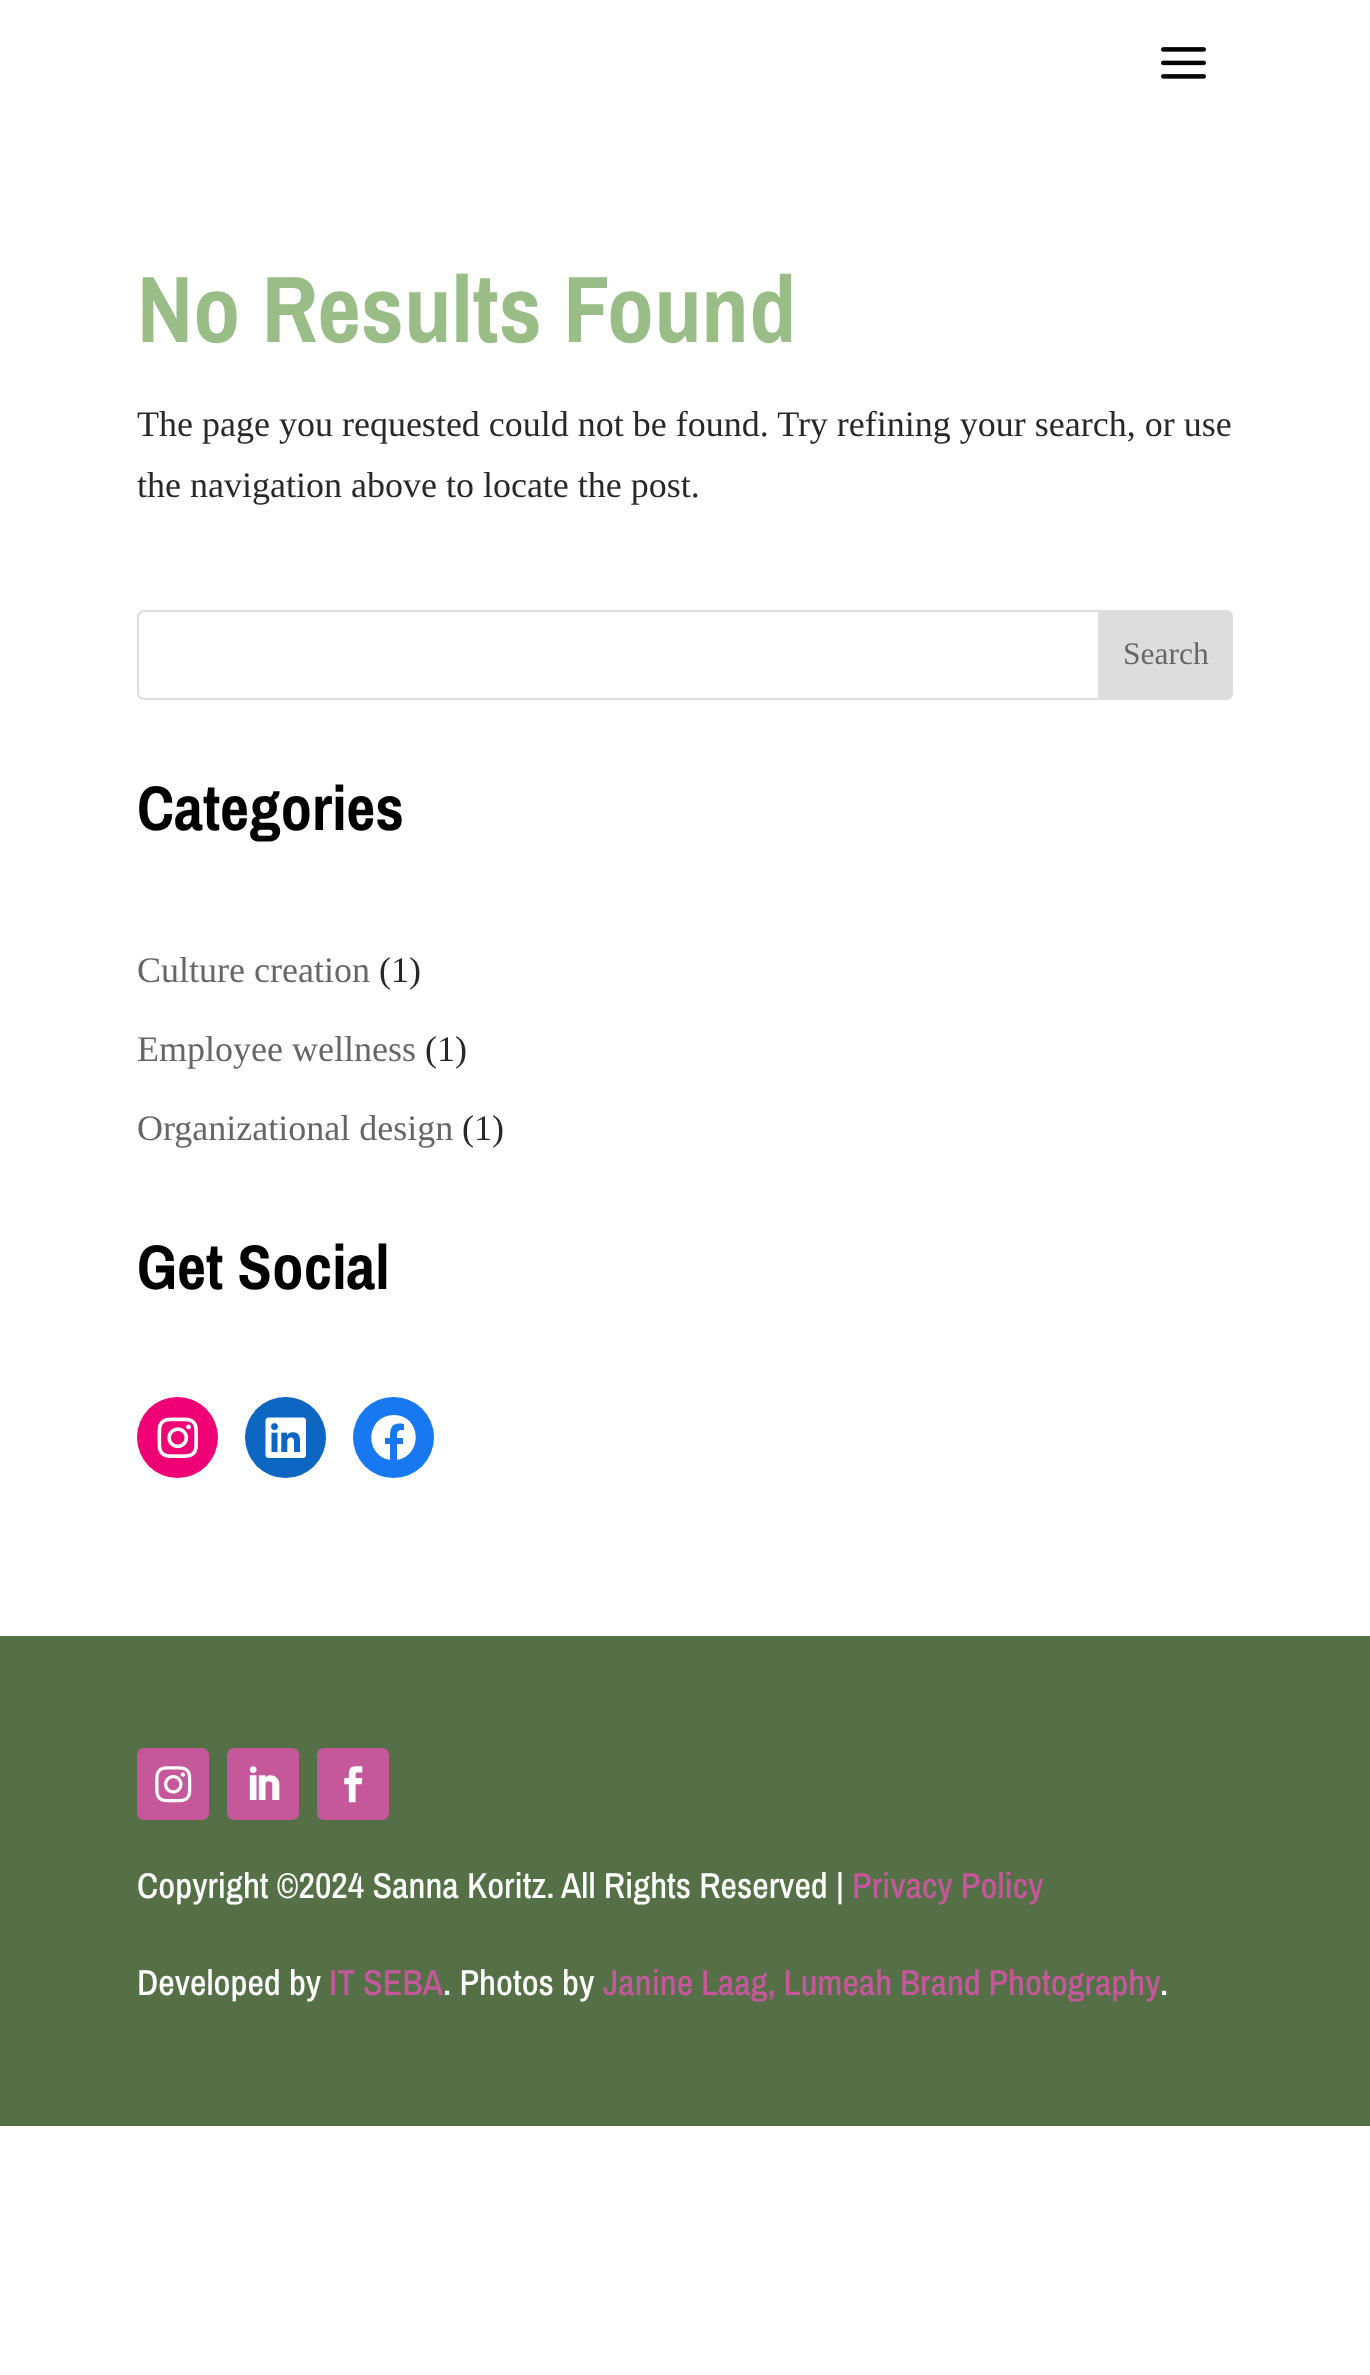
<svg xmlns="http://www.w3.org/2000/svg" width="1370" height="2375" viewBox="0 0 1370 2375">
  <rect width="100%" height="100%" fill="#fff"/>
  <image x="1161" y="47" width="45" height="32" href="img/1.png"/>
  <rect x="138" y="611" width="1094" height="88" rx="6" fill="none" stroke="#ddd" stroke-width="2"/>
  <path d="M1099 611H1226C1229.5 611 1232 613.5 1232 617V693C1232 696.5 1229.5 699 1226 699H1099Z" fill="#ddd" stroke="#ddd" stroke-width="2"/>
  <circle cx="177.5" cy="1437.5" r="40.5" fill="#f00075"/>
  <image x="157" y="1417" width="41" height="41" href="img/2.png"/>
  <circle cx="285.5" cy="1437.5" r="40.5" fill="#0d66c2"/>
  <image x="265" y="1417" width="41" height="41" href="img/3.png"/>
  <circle cx="393.5" cy="1437.5" r="40.5" fill="#1778f2"/>
  <path d="M394 1415C366 1415 363 1455 390 1460V1444H385V1438H390C390 1427 392 1422 404 1424V1430C397 1430 397 1431 397 1438H403V1444H397V1460C424 1455 421 1415 394 1415Z" fill="#fff"/>
  <path d="M0 1636h1370v490H0z" fill="#557046"/>
  <rect x="137" y="1748" width="72" height="72" rx="7" fill="#c4589b"/>
  <image x="155" y="1766" width="37" height="37" href="img/4.png"/>
  <rect x="227" y="1748" width="72" height="72" rx="7" fill="#c4589b"/>
  <image x="249" y="1766" width="31" height="34" href="img/5.png"/>
  <rect x="317" y="1748" width="72" height="72" rx="7" fill="#c4589b"/>
  <image x="344" y="1766" width="19" height="37" href="img/6.png"/>
  <text x="137" y="342" font-family="Archivo Narrow" font-size="94.5" font-weight="bold" fill="#9abc87">No Results Found</text>
  <g font-family="Liberation Serif" font-size="36" fill="#282828">
    <text x="137" y="436">The page you requested could not be found. Try refining your search, or use</text>
    <text x="137" y="497">the navigation above to locate the post.</text>
  </g>
  <text x="1123" y="664" font-family="Liberation Serif" font-size="31.5" fill="#666">Search</text>
  <text x="137" y="830" font-family="Archivo Narrow" font-size="63" font-weight="bold" fill="#000">Categories</text>
  <text x="137" y="982" font-family="Liberation Serif" font-size="36" fill="#666">Culture creation</text>
  <text x="379" y="982" font-family="Liberation Serif" font-size="36" fill="#282828">(1)</text>
  <text x="137" y="1061" font-family="Liberation Serif" font-size="36" fill="#666">Employee wellness</text>
  <text x="425" y="1061" font-family="Liberation Serif" font-size="36" fill="#282828">(1)</text>
  <text x="137" y="1140" font-family="Liberation Serif" font-size="36" fill="#666">Organizational design</text>
  <text x="462" y="1140" font-family="Liberation Serif" font-size="36" fill="#282828">(1)</text>
  <text x="137" y="1289" font-family="Archivo Narrow" font-size="63" font-weight="bold" fill="#000">Get Social</text>
  <text x="137" y="1898" font-family="Archivo Narrow" font-size="36" font-weight="500" fill="#fff">Copyright ©2024 Sanna Koritz. All Rights Reserved |</text>
  <text x="852" y="1898" font-family="Archivo Narrow" font-size="36" font-weight="500" fill="#c4589b">Privacy Policy</text>
  <text x="137" y="1995" font-family="Archivo Narrow" font-size="36" font-weight="500" fill="#fff">Developed by</text>
  <text x="329" y="1995" font-family="Archivo Narrow" font-size="36" font-weight="500" fill="#c4589b">IT SEBA</text>
  <text x="443" y="1995" font-family="Archivo Narrow" font-size="36" font-weight="500" fill="#fff">. Photos by</text>
  <text x="603" y="1995" word-spacing="-0.5" font-family="Archivo Narrow" font-size="36" font-weight="500" fill="#c4589b">Janine Laag, Lumeah Brand Photography</text>
  <text x="1160" y="1995" font-family="Archivo Narrow" font-size="36" font-weight="500" fill="#fff">.</text>
</svg>
